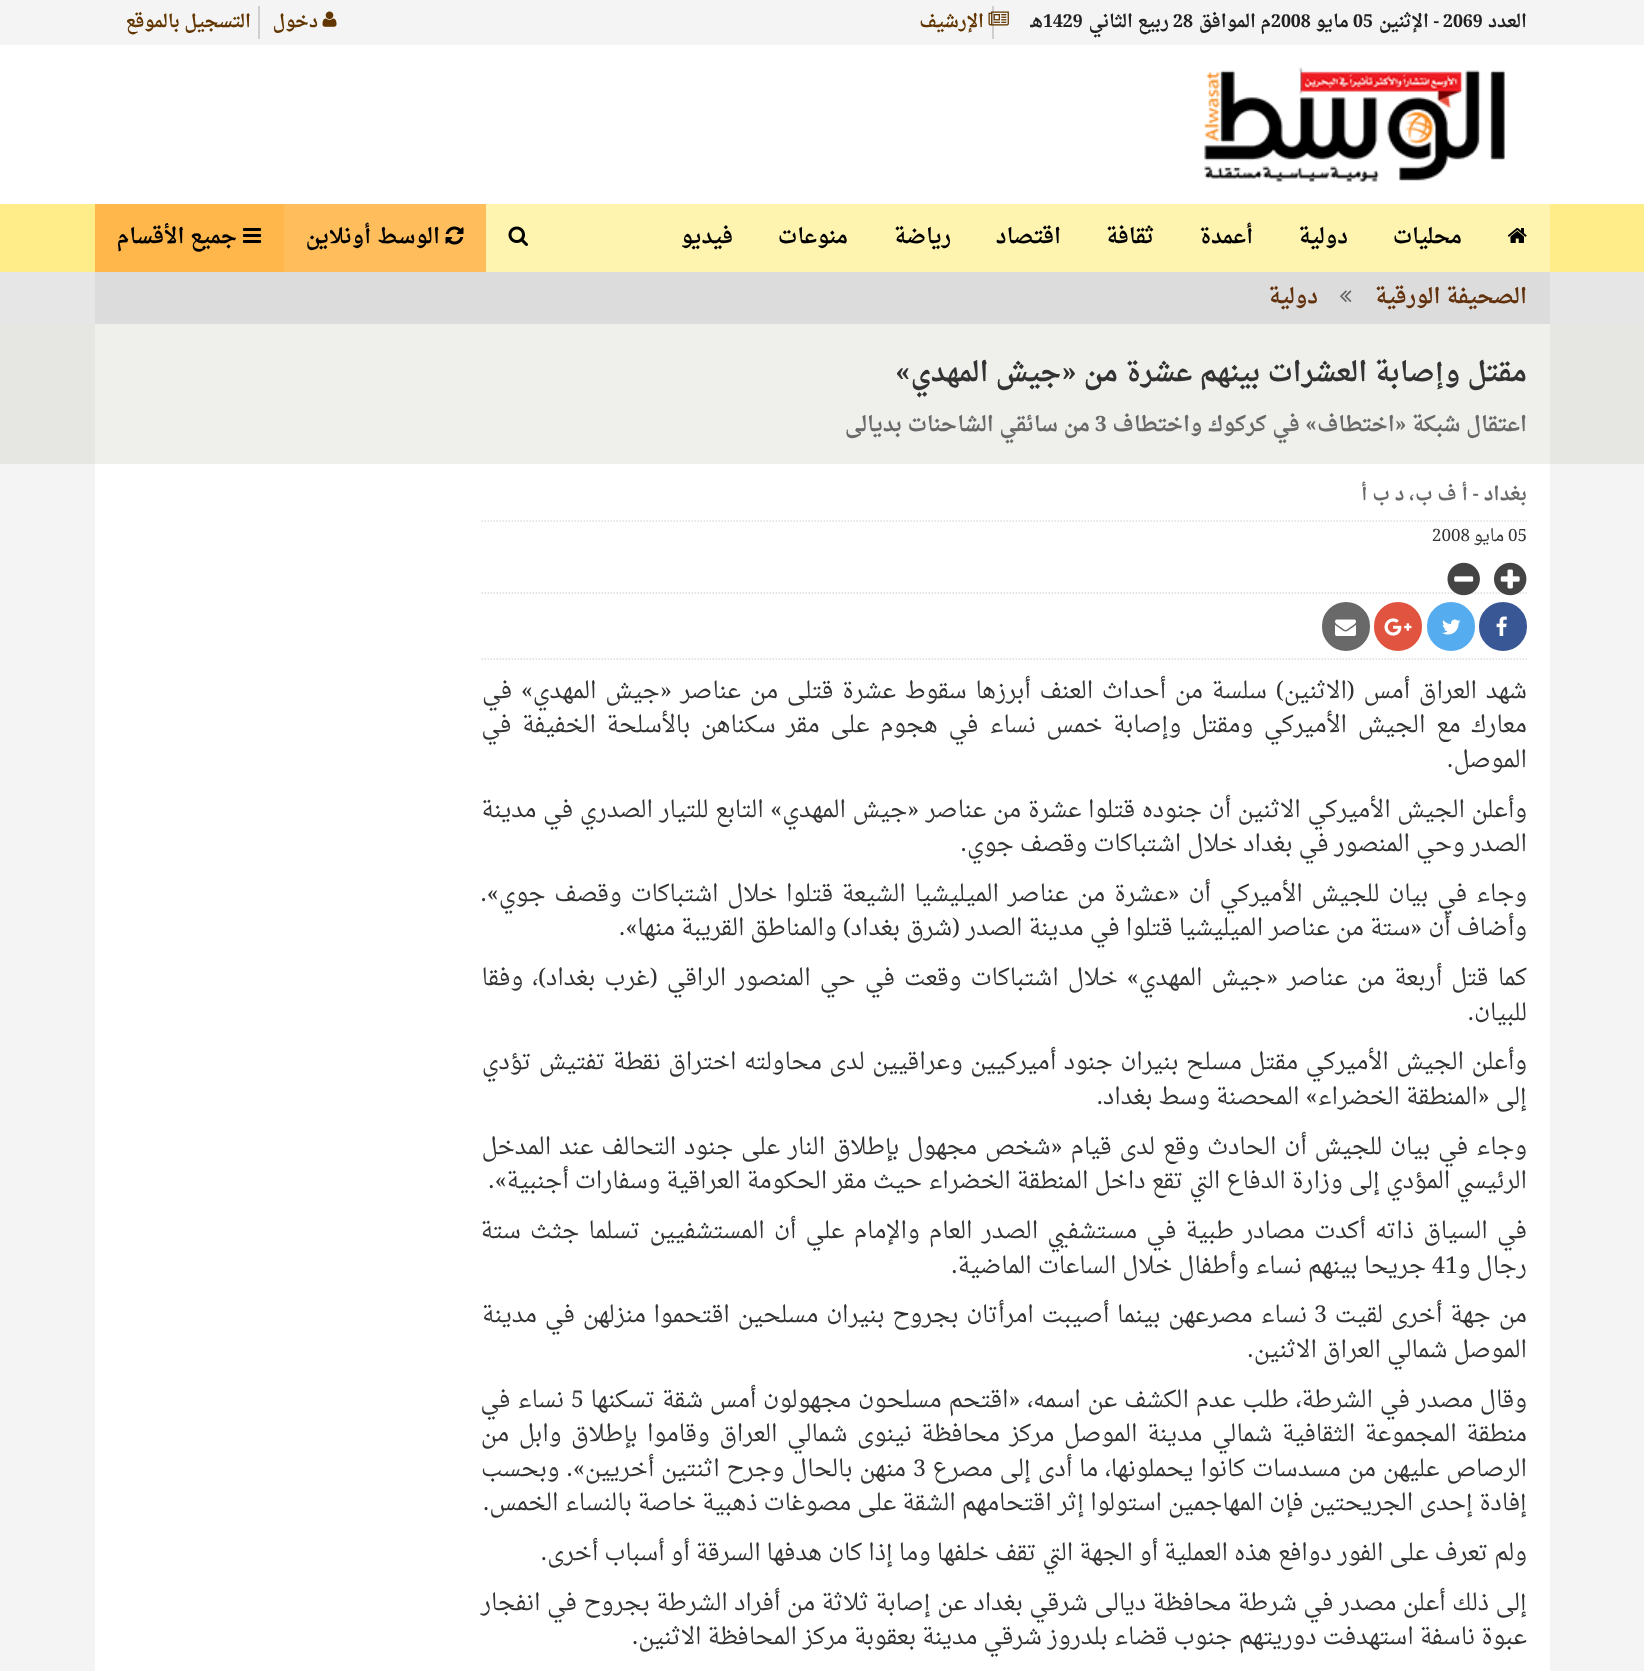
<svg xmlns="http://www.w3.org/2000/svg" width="1644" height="1671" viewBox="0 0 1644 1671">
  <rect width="100%" height="100%" fill="#fff"/>
  <path d="M0 0h1644v45H0z" fill="#f4f4f4"/>
  <path d="M992 6h2v33H992z" fill="#cecece"/>
  <image x="988" y="11" width="21" height="15" href="img/1.png"/>
  <image x="322" y="11" width="15" height="16" href="img/2.png"/>
  <path d="M258 6h2v33H258z" fill="#cecece"/>
  <image x="1204" y="67" width="301" height="115" href="img/3.png"/>
  <path d="M0 204h1644v68H0z" fill="#ffed8a"/>
  <path d="M486 204h1064v68H486z" fill="#fff3b0"/>
  <image x="1507" y="228" width="20" height="15" href="img/4.png"/>
  <image x="508" y="226" width="20" height="20" href="img/5.png"/>
  <path d="M284 204h202v68H284z" fill="#ffbe5b"/>
  <image x="445" y="226" width="19" height="19" href="img/6.png"/>
  <path d="M95 204h189v68H95z" fill="#ffb74c"/>
  <image x="243" y="228" width="18" height="15" href="img/7.png"/>
  <path d="M0 272h1644v52H0z" fill="#e6e6e6"/>
  <path d="M95 272h1455v52H95z" fill="#dcdcdc"/>
  <image x="1340" y="290" width="12" height="12" href="img/8.png"/>
  <path d="M0 464h1644v1207H0z" fill="#f4f4f4"/>
  <path d="M0 324h1644v140H0z" fill="#e6e6e3"/>
  <path d="M95 324h1455v140H95z" fill="#efefec"/>
  <path d="M95 464h1455v1207H95z" fill="#fff"/>
  <path d="M481.5 521H1527" fill="none" stroke="#e0e0e0" stroke-width="1.5" stroke-dasharray="1.5 1.5"/>
  <path d="M481.5 593H1527" fill="none" stroke="#dcdcdc" stroke-width="1.5" stroke-dasharray="1.5 1.5"/>
  <image x="1494" y="562" width="33" height="34" href="img/9.png"/>
  <image x="1447" y="562" width="33" height="34" href="img/10.png"/>
  <path d="M481.5 659H1527" fill="none" stroke="#dcdcdc" stroke-width="1.5" stroke-dasharray="1.5 1.5"/>
  <rect x="1480" y="603" width="46" height="47" rx="23" fill="#3a5795" stroke="#3a5795" stroke-width="2"/>
  <image x="1496" y="616" width="11" height="20" href="img/11.png"/>
  <rect x="1428" y="603" width="46" height="47" rx="23" fill="#55acee" stroke="#55acee" stroke-width="2"/>
  <image x="1442" y="619" width="19" height="16" href="img/12.png"/>
  <rect x="1375" y="603" width="46" height="47" rx="23" fill="#e15440" stroke="#e15440" stroke-width="2"/>
  <image x="1384" y="618" width="28" height="18" href="img/13.png"/>
  <rect x="1323" y="603" width="46" height="47" rx="23" fill="#696969" stroke="#696969" stroke-width="2"/>
  <image x="1335" y="619" width="21" height="17" href="img/14.png"/>
  <text x="1527" y="27" font-family="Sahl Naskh" font-size="17.75" font-weight="bold" direction="rtl" fill="#212121">العدد</text>
  <text x="1443" y="27" font-family="Sahl Naskh" font-size="17.75" font-weight="bold" fill="#212121">2069</text>
  <text x="1439" y="27" font-family="Sahl Naskh" font-size="17.75" font-weight="bold" direction="rtl" fill="#212121">- الإثنين</text>
  <text x="1353" y="27" font-family="Sahl Naskh" font-size="17.75" font-weight="bold" fill="#212121">05</text>
  <text x="1349" y="27" font-family="Sahl Naskh" font-size="17.75" font-weight="bold" direction="rtl" fill="#212121">مايو</text>
  <text x="1271" y="27" font-family="Sahl Naskh" font-size="17.75" font-weight="bold" fill="#212121">2008</text>
  <g font-family="Sahl Naskh" font-size="17.75" font-weight="bold" direction="rtl" fill="#212121">
    <text x="1271" y="27">م</text>
    <text x="1256" y="27">الموافق</text>
  </g>
  <text x="1173" y="27" font-family="Sahl Naskh" font-size="17.75" font-weight="bold" fill="#212121">28</text>
  <text x="1169" y="27" font-family="Sahl Naskh" font-size="17.75" font-weight="bold" direction="rtl" fill="#212121">ربيع الثاني</text>
  <text x="1043" y="27" font-family="Sahl Naskh" font-size="17.75" font-weight="bold" fill="#212121">1429</text>
  <text x="1043" y="27" font-family="Sahl Naskh" font-size="17.75" font-weight="bold" direction="rtl" fill="#212121">هـ</text>
  <g font-family="Sahl Naskh" font-size="17.75" font-weight="bold" direction="rtl" fill="#623600">
    <text x="984" y="27">الإرشيف</text>
    <text x="318" y="27">دخول</text>
    <text x="251" y="27">التسجيل بالموقع</text>
  </g>
  <g font-family="Sahl Naskh" font-size="21" font-weight="bold" direction="rtl" fill="#000">
    <text x="1462" y="243">محليات</text>
    <text x="1348" y="243">دولية</text>
    <text x="1253" y="243">أعمدة</text>
    <text x="1154" y="243">ثقافة</text>
    <text x="1061" y="243">اقتصاد</text>
    <text x="951" y="243">رياضة</text>
    <text x="848" y="243">منوعات</text>
    <text x="733" y="243">فيديو</text>
    <text x="440" y="243">الوسط</text>
    <text x="371" y="243">أونلاين</text>
    <text x="237" y="243">جميع الأقسام</text>
  </g>
  <g font-family="Sahl Naskh" font-size="21" font-weight="bold" direction="rtl" fill="#61310d">
    <text x="1527" y="303">الصحيفة الورقية</text>
    <text x="1318" y="303">دولية</text>
  </g>
  <text x="1527" y="381" font-family="Sahl Naskh" font-size="27.3" font-weight="bold" direction="rtl" fill="#333">مقتل وإصابة العشرات بينهم عشرة من «جيش المهدي»</text>
  <text x="1527" y="431" font-family="Sahl Naskh" font-size="21" font-weight="bold" direction="rtl" fill="#696969">اعتقال شبكة «اختطاف» في كركوك واختطاف</text>
  <text x="1095" y="431" font-family="Sahl Naskh" font-size="21" font-weight="bold" fill="#696969">3</text>
  <text x="1090" y="431" font-family="Sahl Naskh" font-size="21" font-weight="bold" direction="rtl" fill="#696969">من سائقي الشاحنات بديالى</text>
  <text x="1527" y="500" font-family="Sahl Naskh" font-size="19" font-weight="bold" direction="rtl" fill="#696969">بغداد - أ ف ب، د ب أ</text>
  <text x="1508" y="541" font-family="Sahl Naskh" font-size="17" fill="#333">05</text>
  <text x="1504" y="541" font-family="Sahl Naskh" font-size="17" direction="rtl" fill="#333">مايو</text>
  <text x="1432" y="541" font-family="Sahl Naskh" font-size="17" fill="#333">2008</text>
  <g font-family="Sahl Naskh" font-size="23.1" direction="rtl" fill="#333">
    <text x="1527" y="698" word-spacing="2.75">شهد العراق أمس (الاثنين) سلسة من أحداث العنف أبرزها سقوط عشرة قتلى من عناصر «جيش المهدي» في</text>
    <text x="1527" y="732" word-spacing="4.6">معارك مع الجيش الأميركي ومقتل وإصابة خمس نساء في هجوم على مقر سكناهن بالأسلحة الخفيفة في</text>
    <text x="1527" y="767">الموصل.</text>
    <text x="1527" y="817" word-spacing="0.6">وأعلن الجيش الأميركي الاثنين أن جنوده قتلوا عشرة من عناصر «جيش المهدي» التابع للتيار الصدري في مدينة</text>
    <text x="1527" y="851">الصدر وحي المنصور في بغداد خلال اشتباكات وقصف جوي.</text>
    <text x="1527" y="901" word-spacing="2.75">وجاء في بيان للجيش الأميركي أن «عشرة من عناصر الميليشيا الشيعة قتلوا خلال اشتباكات وقصف جوي».</text>
    <text x="1527" y="935">وأضاف أن «ستة من عناصر الميليشيا قتلوا في مدينة الصدر (شرق بغداد) والمناطق القريبة منها».</text>
    <text x="1527" y="985" word-spacing="3.1">كما قتل أربعة من عناصر «جيش المهدي» خلال اشتباكات وقعت في حي المنصور الراقي (غرب بغداد)، وفقا</text>
    <text x="1527" y="1020">للبيان.</text>
    <text x="1527" y="1069" word-spacing="1.5">وأعلن الجيش الأميركي مقتل مسلح بنيران جنود أميركيين وعراقيين لدى محاولته اختراق نقطة تفتيش تؤدي</text>
    <text x="1527" y="1104">إلى «المنطقة الخضراء» المحصنة وسط بغداد.</text>
    <text x="1527" y="1154" word-spacing="1.8">وجاء في بيان للجيش أن الحادث وقع لدى قيام «شخص مجهول بإطلاق النار على جنود التحالف عند المدخل</text>
    <text x="1527" y="1188">الرئيسي المؤدي إلى وزارة الدفاع التي تقع داخل المنطقة الخضراء حيث مقر الحكومة العراقية وسفارات أجنبية».</text>
    <text x="1527" y="1238" word-spacing="3.25">في السياق ذاته أكدت مصادر طبية في مستشفيي الصدر العام والإمام علي أن المستشفيين تسلما جثث ستة</text>
    <text x="1527" y="1273">رجال و</text>
  </g>
  <text x="1432" y="1273" font-family="Sahl Naskh" font-size="23.1" fill="#333">41</text>
  <g font-family="Sahl Naskh" font-size="23.1" direction="rtl" fill="#333">
    <text x="1426" y="1273">جريحا بينهم نساء وأطفال خلال الساعات الماضية.</text>
    <text x="1527" y="1322" word-spacing="2">من جهة أخرى لقيت</text>
  </g>
  <text x="1314" y="1322" font-family="Sahl Naskh" font-size="23.1" fill="#333">3</text>
  <g font-family="Sahl Naskh" font-size="23.1" direction="rtl" fill="#333">
    <text x="1307" y="1322" word-spacing="1.8">نساء مصرعهن بينما أصيبت امرأتان بجروح بنيران مسلحين اقتحموا منزلهن في مدينة</text>
    <text x="1527" y="1357">الموصل شمالي العراق الاثنين.</text>
    <text x="1527" y="1407" word-spacing="0.75">وقال مصدر في الشرطة، طلب عدم الكشف عن اسمه، «اقتحم مسلحون مجهولون أمس شقة تسكنها</text>
  </g>
  <text x="571" y="1407" font-family="Sahl Naskh" font-size="23.1" fill="#333">5</text>
  <g font-family="Sahl Naskh" font-size="23.1" direction="rtl" fill="#333">
    <text x="564" y="1407" word-spacing="1">نساء في</text>
    <text x="1527" y="1441" word-spacing="3.6">منطقة المجموعة الثقافية شمالي مدينة الموصل مركز محافظة نينوى شمالي العراق وقاموا بإطلاق وابل من</text>
    <text x="1527" y="1476" word-spacing="0.75">الرصاص عليهن من مسدسات كانوا يحملونها، ما أدى إلى مصرع</text>
  </g>
  <text x="913" y="1476" font-family="Sahl Naskh" font-size="23.1" fill="#333">3</text>
  <g font-family="Sahl Naskh" font-size="23.1" direction="rtl" fill="#333">
    <text x="906" y="1476" word-spacing="0.75">منهن بالحال وجرح اثنتين أخريين». وبحسب</text>
    <text x="1527" y="1510">إفادة إحدى الجريحتين فإن المهاجمين استولوا إثر اقتحامهم الشقة على مصوغات ذهبية خاصة بالنساء الخمس.</text>
    <text x="1527" y="1560">ولم تعرف على الفور دوافع هذه العملية أو الجهة التي تقف خلفها وما إذا كان هدفها السرقة أو أسباب أخرى.</text>
    <text x="1527" y="1610" word-spacing="0.5">إلى ذلك أعلن مصدر في شرطة محافظة ديالى شرقي بغداد عن إصابة ثلاثة من أفراد الشرطة بجروح في انفجار</text>
    <text x="1527" y="1644">عبوة ناسفة استهدفت دوريتهم جنوب قضاء بلدروز شرقي مدينة بعقوبة مركز المحافظة الاثنين.</text>
  </g>
</svg>
